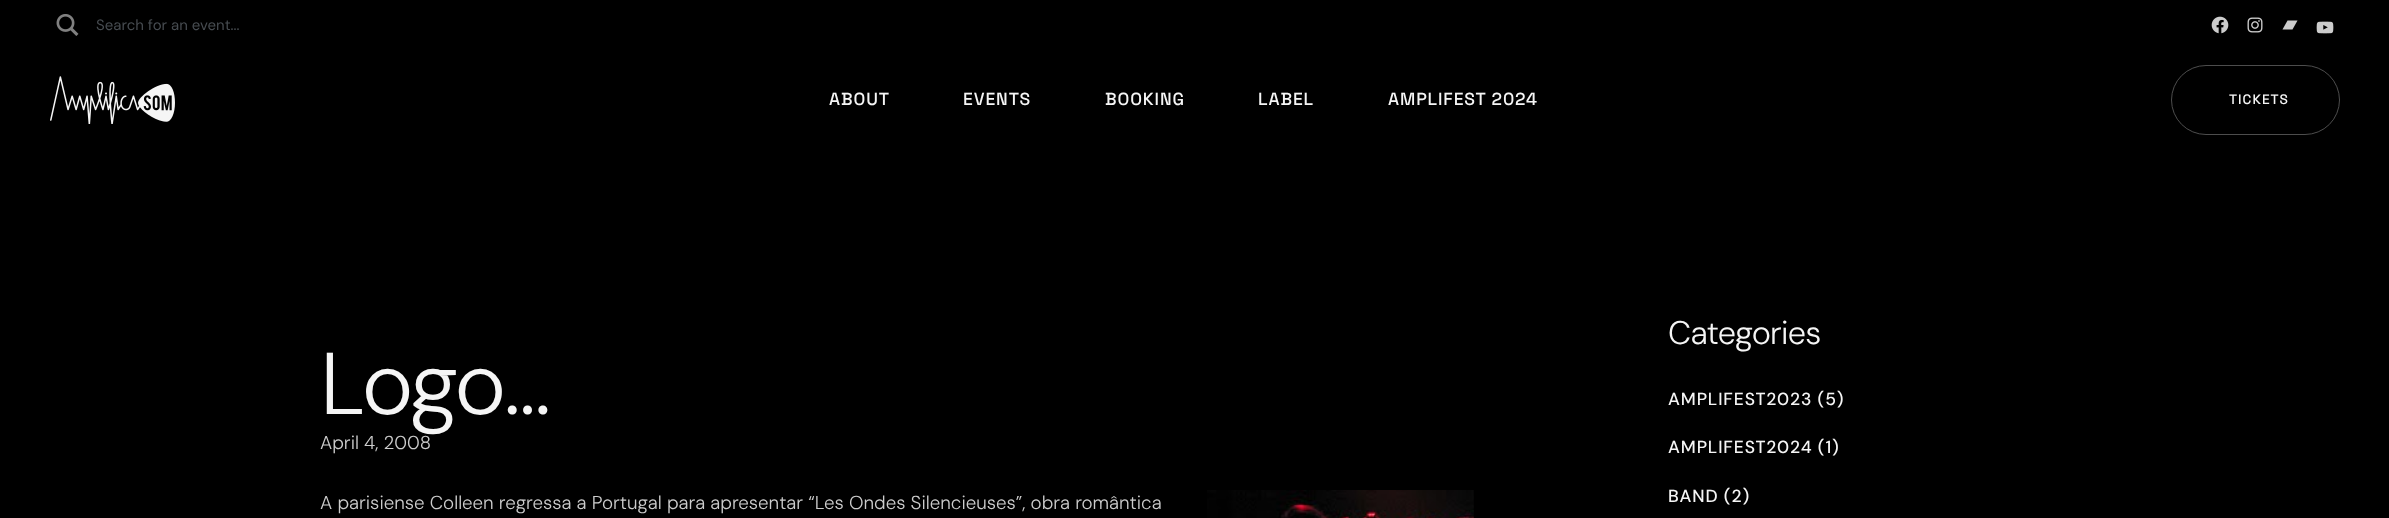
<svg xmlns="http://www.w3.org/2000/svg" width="2389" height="518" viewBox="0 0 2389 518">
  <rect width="100%" height="100%" fill="#000"/>
  <image x="56" y="14" width="23" height="22" href="img/1.png"/>
  <image x="2211" y="16" width="18" height="18" href="img/2.png"/>
  <image x="2247" y="17" width="16" height="16" href="img/3.png"/>
  <path d="M2292.5 29.5H2282.5L2287.5 20.5H2297.5L2292.5 29.5" fill="#ccc"/>
  <image x="2316" y="21" width="18" height="13" href="img/4.png"/>
  <image x="50" y="76" width="125" height="48" href="img/5.png"/>
  <rect x="2171.5" y="65.5" width="168" height="69" rx="34.5" fill="none" stroke="#4d4d4d"/>
  <image x="1207" y="490" width="267" height="28" href="img/6.png"/>
  <text x="96" y="30" font-family="DM Sans" font-size="15" fill="#474c51">Search for an event...</text>
  <g font-family="Space Grotesk" font-size="17.5" font-weight="500" letter-spacing="0.9" fill="#f5f5f5">
    <text x="829" y="105">ABOUT</text>
    <text x="963" y="105">EVENTS</text>
    <text x="1105" y="105">BOOKING</text>
    <text x="1258" y="105">LABEL</text>
    <text x="1388" y="105">AMPLIFEST 2024</text>
  </g>
  <text x="2229" y="104" font-family="Space Grotesk" font-size="13.75" font-weight="500" letter-spacing="1" fill="#f5f5f5">TICKETS</text>
  <text x="320" y="414" font-family="DM Sans" font-size="87.5" font-weight="300" letter-spacing="-2" fill="#f5f5f5">Logo…</text>
  <g font-family="DM Sans" font-size="18.75" font-weight="300" fill="#ccc">
    <text x="320" y="449">April 4, 2008</text>
    <text x="320" y="509">A parisiense Colleen regressa a Portugal para apresentar “Les Ondes Silencieuses”, obra romântica</text>
  </g>
  <text x="1668" y="344" font-family="DM Sans" font-size="32.5" font-weight="300" letter-spacing="-0.75" fill="#f5f5f5">Categories</text>
  <g font-family="DM Sans" font-size="17.5" font-weight="500" letter-spacing="0.9" fill="#f5f5f5">
    <text x="1668" y="405">AMPLIFEST2023 (5)</text>
    <text x="1668" y="453">AMPLIFEST2024 (1)</text>
    <text x="1668" y="502">BAND (2)</text>
  </g>
</svg>
